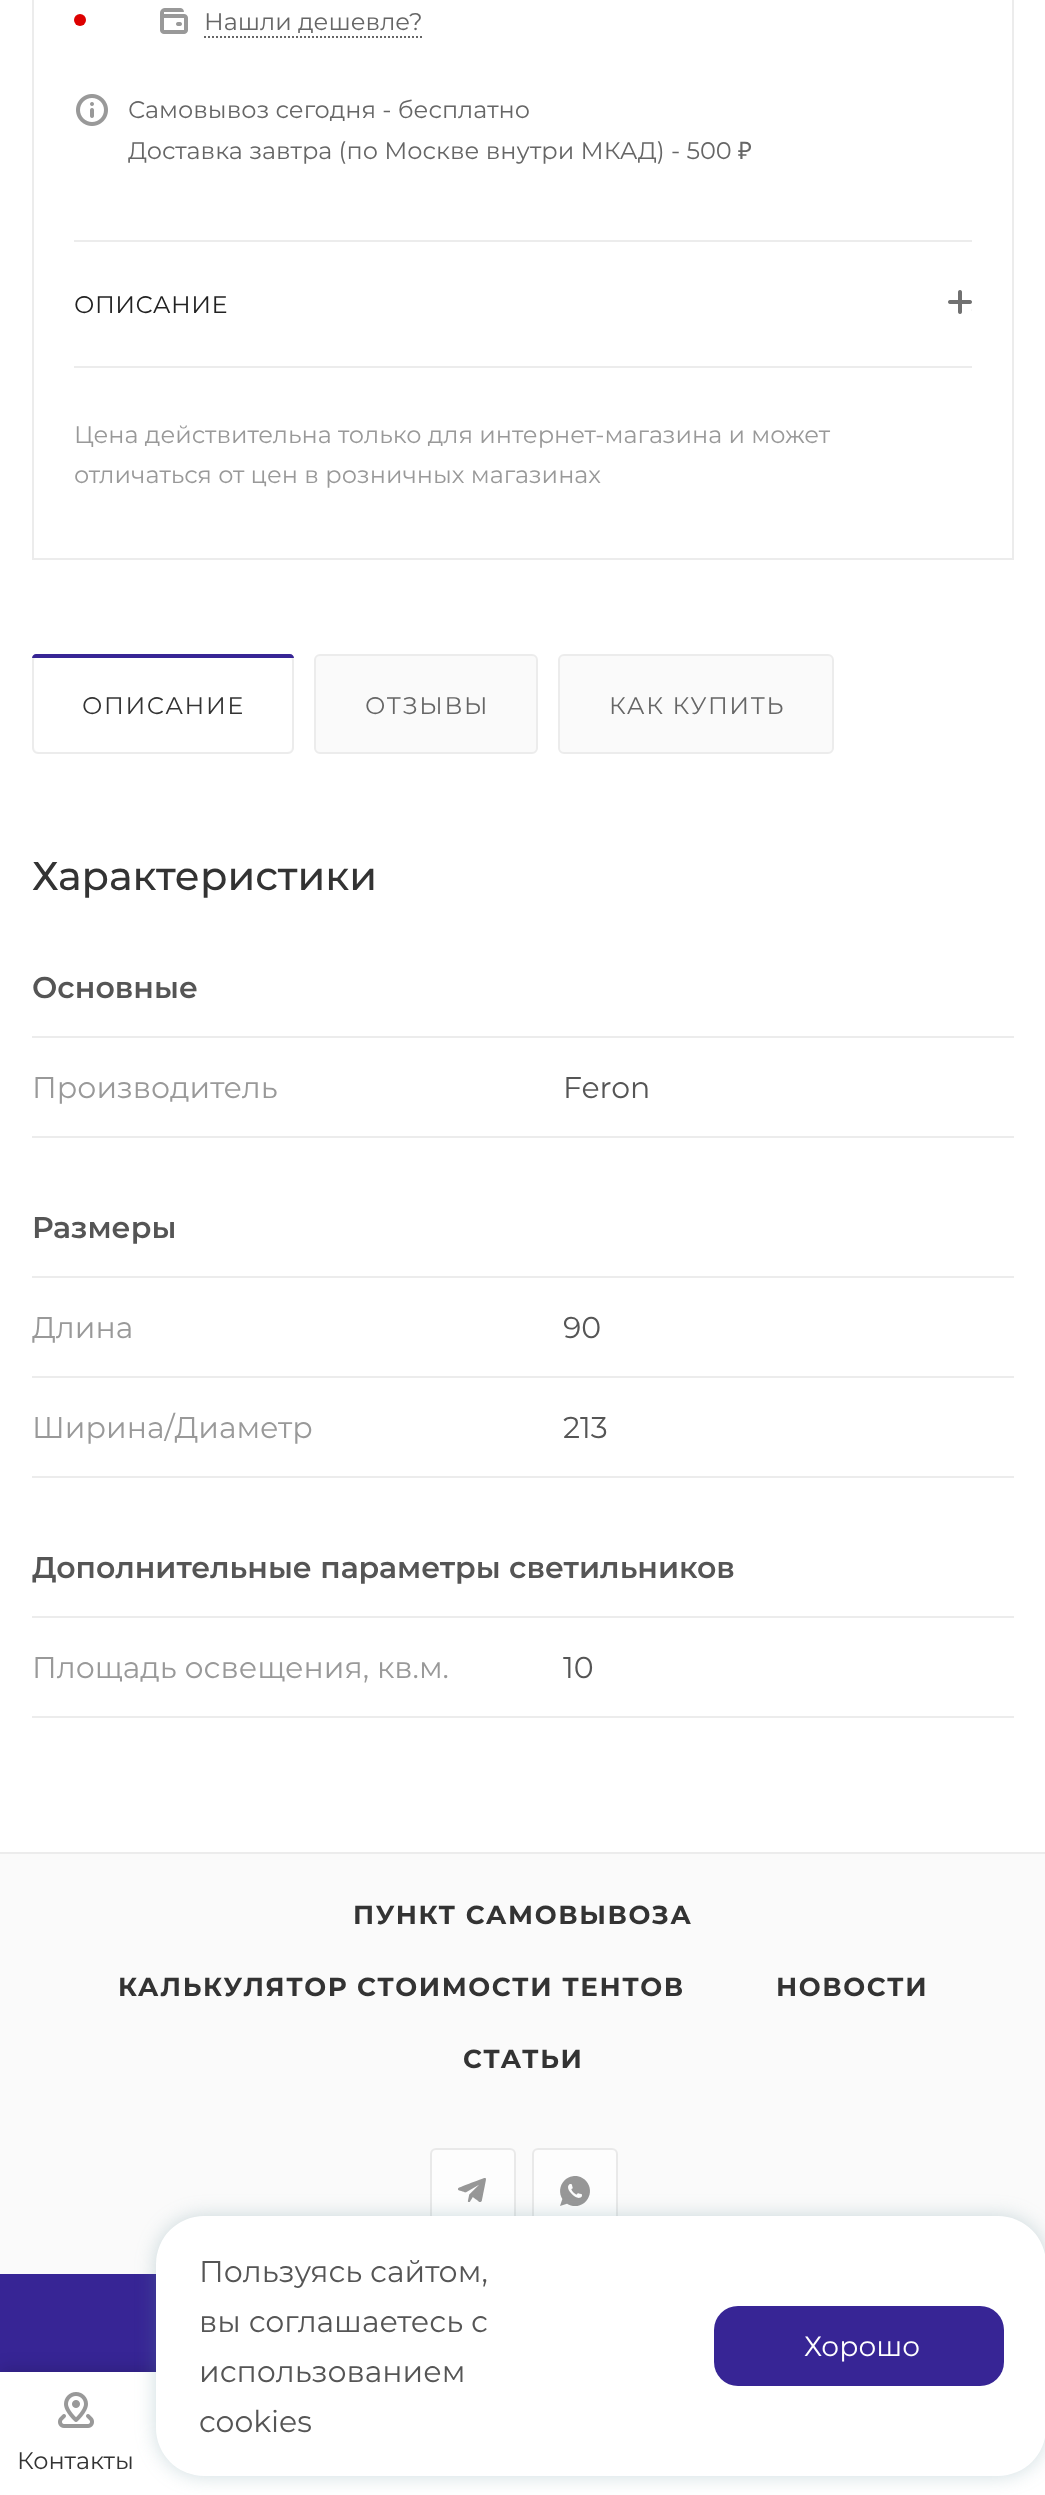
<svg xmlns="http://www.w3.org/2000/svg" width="1045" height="2495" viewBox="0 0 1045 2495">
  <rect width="100%" height="100%" fill="#fff"/>
  <path d="M33 -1h980v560H33z" fill="none" stroke="#ececec" stroke-width="2"/>
  <circle cx="80" cy="20" r="6" fill="#d00"/>
  <image x="160" y="8" width="28" height="26" href="img/1.png"/>
  <path d="M204 37H422" fill="none" stroke="#666" stroke-width="2" stroke-dasharray="2 2"/>
  <path d="M0 2274h156v98H0z" fill="#372595"/>
  <image x="76" y="94" width="32" height="32" href="img/2.png"/>
  <path d="M74 240h898v2H74z" fill="#ececec"/>
  <path d="M74 366h898v2H74z" fill="#ececec"/>
  <image x="948" y="290" width="24" height="24" href="img/3.png"/>
  <rect x="33" y="655" width="260" height="98" rx="5" fill="#fafafa" stroke="#ececec" stroke-width="2"/>
  <rect x="34" y="656" width="258" height="96" rx="6" fill="#fff"/>
  <path d="M36 654H290C292 654 294 656 294 658H32C32 656 34 654 36 654Z" fill="#372595"/>
  <rect x="315" y="655" width="222" height="98" rx="5" fill="#fafafa" stroke="#ececec" stroke-width="2"/>
  <rect x="559" y="655" width="274" height="98" rx="5" fill="#fafafa" stroke="#ececec" stroke-width="2"/>
  <path d="M32 1036h982v2H32z" fill="#ececec"/>
  <path d="M32 1136h982v2H32z" fill="#ececec"/>
  <path d="M32 1276h982v2H32z" fill="#ececec"/>
  <path d="M32 1376h982v2H32z" fill="#ececec"/>
  <path d="M32 1476h982v2H32z" fill="#ececec"/>
  <path d="M32 1616h982v2H32z" fill="#ececec"/>
  <path d="M32 1716h982v2H32z" fill="#ececec"/>
  <path d="M0 1854h1045v420H0z" fill="#fafafa"/>
  <path d="M0 1852h1045v2H0z" fill="#ececec"/>
  <rect x="430" y="2148" width="86" height="86" rx="6" fill="#fdfdfd"/>
  <image x="458" y="2178" width="28" height="24" href="img/4.png"/>
  <rect x="431" y="2149" width="84" height="84" rx="5" fill="none" stroke="#e9e9e9" stroke-width="2"/>
  <rect x="532" y="2148" width="86" height="86" rx="6" fill="#fdfdfd"/>
  <image x="560" y="2176" width="30" height="30" href="img/5.png"/>
  <rect x="533" y="2149" width="84" height="84" rx="5" fill="none" stroke="#e9e9e9" stroke-width="2"/>
  <path d="M0 2368h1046v124H0z" fill="#00000026" filter="blur(8px)"/>
  <path d="M0 2372h1045v123H0z" fill="#fff"/>
  <rect x="156" y="2216" width="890" height="260" rx="48" fill="#5e8a964d" filter="blur(10px)"/>
  <rect x="156" y="2216" width="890" height="260" rx="48" fill="#fff"/>
  <rect x="714" y="2306" width="290" height="80" rx="24" fill="#372595"/>
  <image x="58" y="2392" width="36" height="36" href="img/6.png"/>
  <g font-family="Montserrat" font-size="24" fill="#666">
    <text x="204" y="30">Нашли дешевле?</text>
    <text x="128" y="118">Самовывоз сегодня - бесплатно</text>
    <text x="128" y="159">Доставка завтра (по Москве внутри МКАД) - 500</text>
  </g>
  <text x="738" y="159" font-family="Noto Sans" font-size="24" fill="#666">₽</text>
  <text x="74" y="313" font-family="Montserrat" font-size="24" letter-spacing="0.5" fill="#222">ОПИСАНИЕ</text>
  <g font-family="Montserrat" font-size="24" fill="#999">
    <text x="74" y="443">Цена действительна только для интернет-магазина и может</text>
    <text x="74" y="483">отличаться от цен в розничных магазинах</text>
  </g>
  <text x="82" y="714" font-family="Montserrat" font-size="24" letter-spacing="1.6" fill="#333">ОПИСАНИЕ</text>
  <g font-family="Montserrat" font-size="24" letter-spacing="1.6" fill="#666">
    <text x="365" y="714">ОТЗЫВЫ</text>
    <text x="609" y="714">КАК КУПИТЬ</text>
  </g>
  <text x="32" y="890" font-family="Montserrat" font-size="40" font-weight="500" fill="#333">Характеристики</text>
  <text x="32" y="998" font-family="Montserrat" font-size="30" font-weight="600" fill="#555">Основные</text>
  <text x="32" y="1098" font-family="Montserrat" font-size="30" fill="#999">Производитель</text>
  <text x="563" y="1098" font-family="Montserrat" font-size="30" fill="#555">Feron</text>
  <text x="32" y="1238" font-family="Montserrat" font-size="30" font-weight="600" fill="#555">Размеры</text>
  <text x="32" y="1338" font-family="Montserrat" font-size="30" fill="#999">Длина</text>
  <text x="563" y="1338" font-family="Montserrat" font-size="30" fill="#555">90</text>
  <text x="32" y="1438" font-family="Montserrat" font-size="30" fill="#999">Ширина/Диаметр</text>
  <text x="563" y="1438" font-family="Montserrat" font-size="30" fill="#555">213</text>
  <text x="32" y="1578" font-family="Montserrat" font-size="30" font-weight="600" fill="#555">Дополнительные параметры светильников</text>
  <text x="32" y="1678" font-family="Montserrat" font-size="30" fill="#999">Площадь освещения, кв.м.</text>
  <text x="563" y="1678" font-family="Montserrat" font-size="30" fill="#555">10</text>
  <g font-family="Montserrat" font-size="26" font-weight="bold" letter-spacing="1.6" fill="#333">
    <text x="353" y="1924">ПУНКТ САМОВЫВОЗА</text>
    <text x="118" y="1996">КАЛЬКУЛЯТОР СТОИМОСТИ ТЕНТОВ</text>
    <text x="776" y="1996">НОВОСТИ</text>
    <text x="463" y="2068">СТАТЬИ</text>
  </g>
  <g font-family="Montserrat" font-size="30" fill="#555">
    <text x="199" y="2282">Пользуясь сайтом,</text>
    <text x="199" y="2332">вы соглашаетесь с</text>
    <text x="199" y="2382">использованием</text>
    <text x="199" y="2432">cookies</text>
  </g>
  <text x="804" y="2356" font-family="Montserrat" font-size="28" fill="#fff">Хорошо</text>
  <text x="17" y="2469" font-family="Montserrat" font-size="24" fill="#333">Контакты</text>
</svg>
